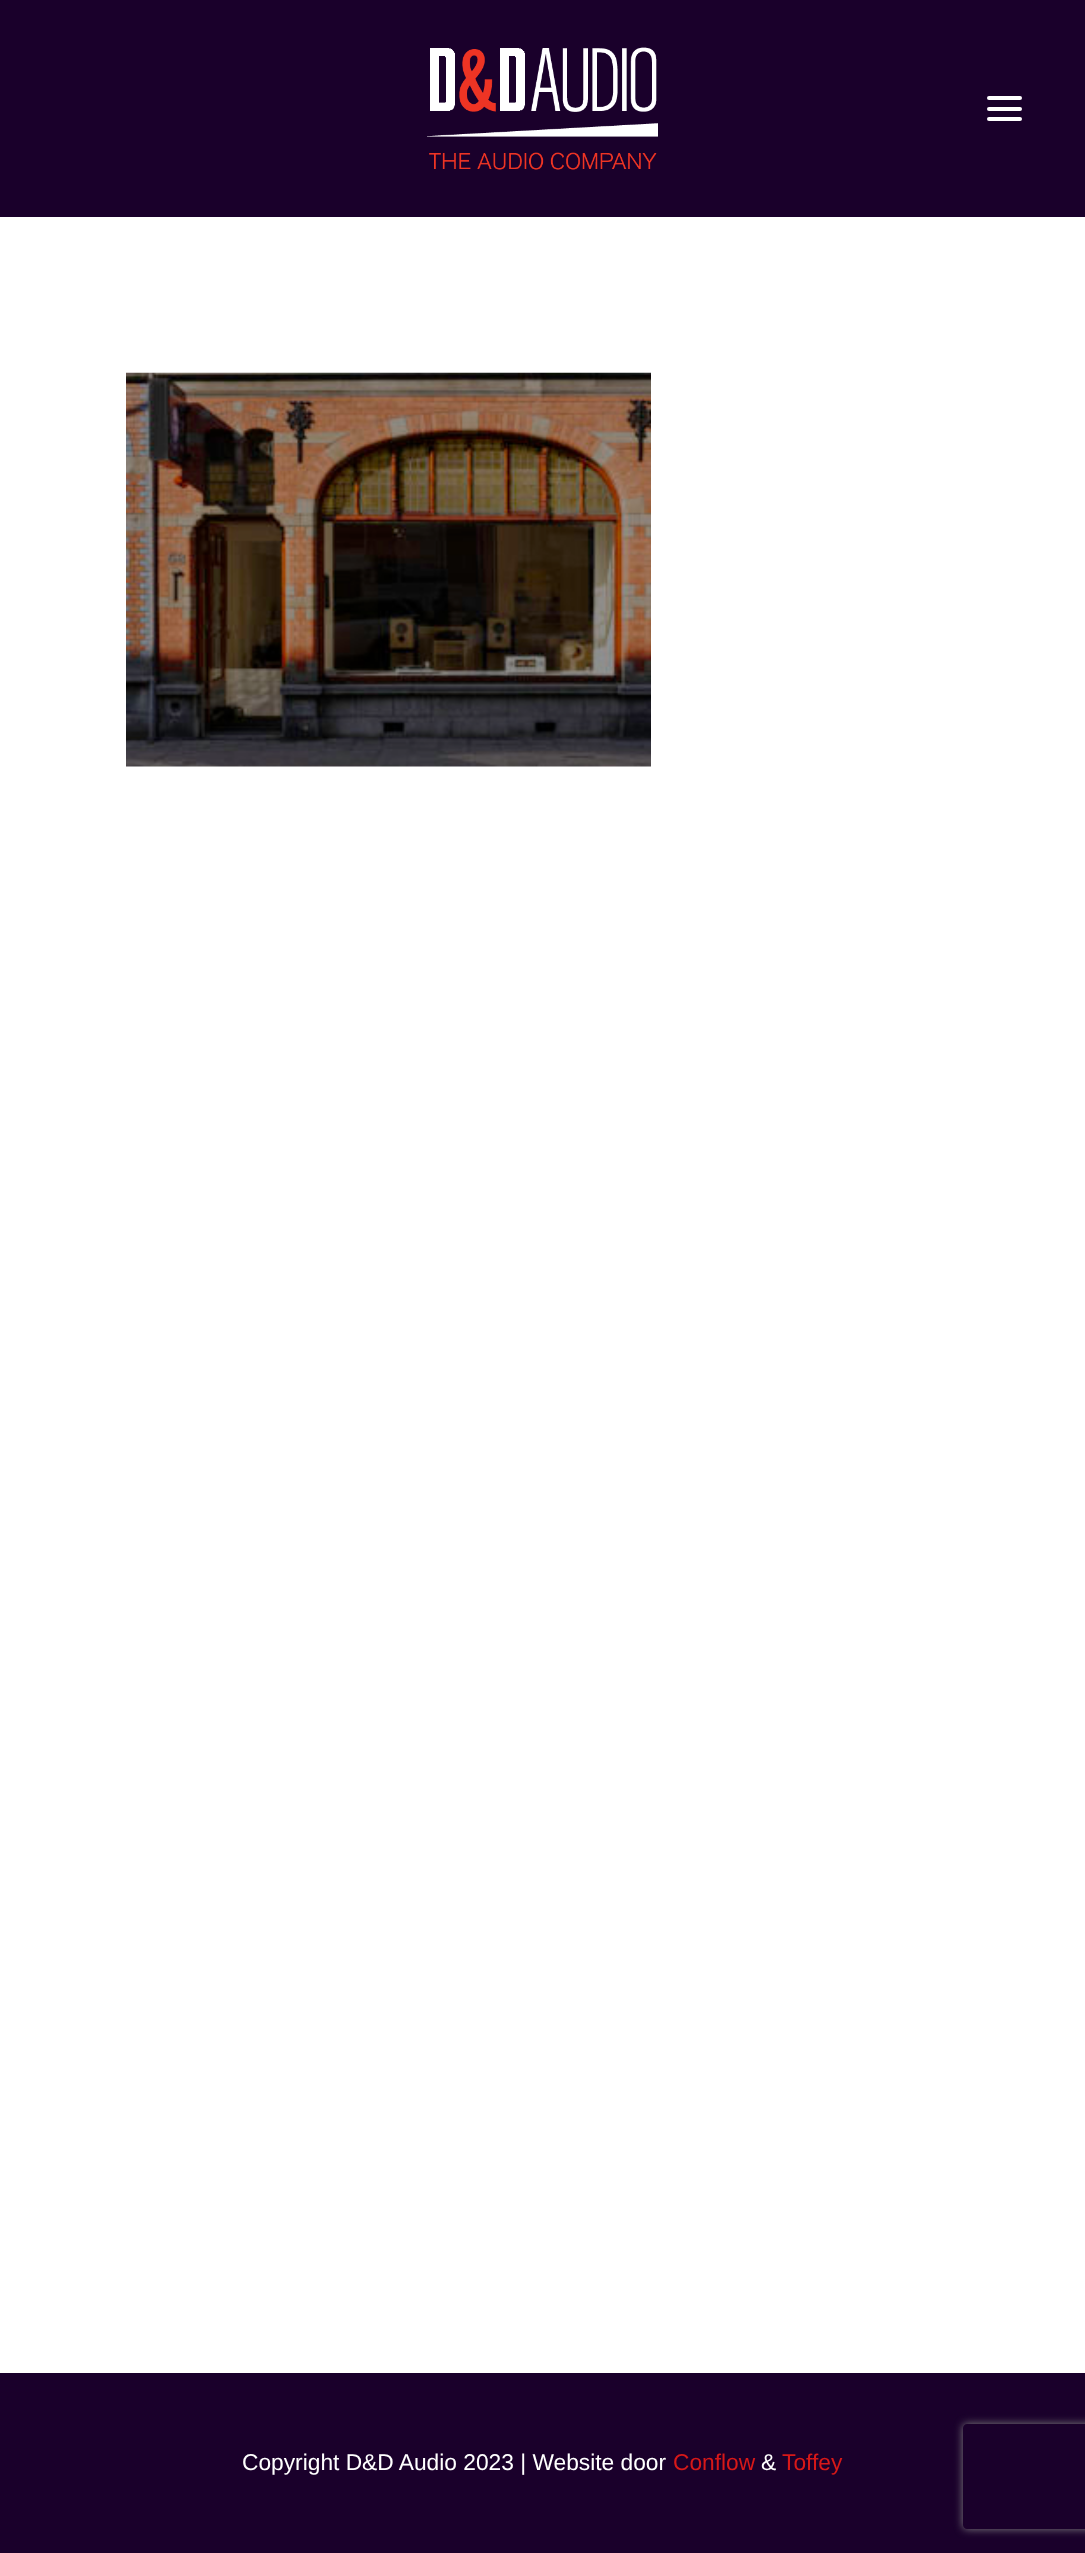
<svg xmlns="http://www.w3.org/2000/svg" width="1085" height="2553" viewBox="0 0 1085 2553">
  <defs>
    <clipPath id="clip1"><path d="M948 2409H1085V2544H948ZM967 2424H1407C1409 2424 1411 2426 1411 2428V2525C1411 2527 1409 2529 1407 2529H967C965 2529 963 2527 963 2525V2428C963 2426 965 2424 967 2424Z" clip-rule="evenodd"/></clipPath>
  </defs>
  <rect width="100%" height="100%" fill="#fff"/>
  <path d="M0 0h1085v217H0z" fill="#1a002b"/>
  <image x="427" y="47" width="231" height="123" href="img/1.png"/>
  <rect x="987" y="107" width="35" height="4" rx="2" fill="#fff"/>
  <rect x="987" y="96" width="35" height="4" rx="2" fill="#fff"/>
  <rect x="987" y="117" width="35" height="4" rx="2" fill="#fff"/>
  <image x="126" y="372" width="525" height="395" href="img/2.png"/>
  <path d="M0 2373h1085v180H0z" fill="#1a002b"/>
  <g clip-path="url(#clip1)">
    <rect x="963" y="2424" width="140" height="105" rx="4" fill="#808080" filter="blur(4.5px)"/>
  </g>
  <text x="242" y="2470" font-family="Liberation Sans" font-size="22.75" fill="#fff">Copyright D&amp;D Audio 2023 | Website door</text>
  <text x="673" y="2470" font-family="Liberation Sans" font-size="22.75" fill="#d71818">Conflow</text>
  <text x="761" y="2470" font-family="Liberation Sans" font-size="22.75" fill="#fff">&amp;</text>
  <text x="782" y="2470" font-family="Liberation Sans" font-size="22.75" fill="#d71818">Toffey</text>
</svg>
